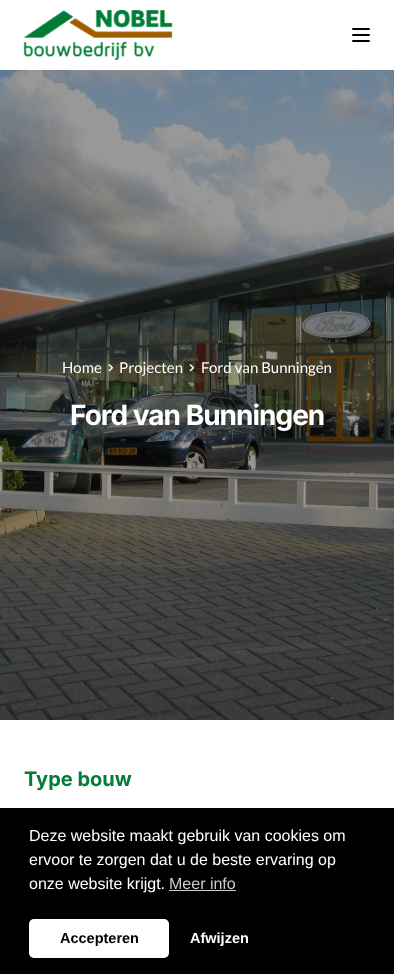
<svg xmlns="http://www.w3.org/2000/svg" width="394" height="974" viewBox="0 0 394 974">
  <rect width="100%" height="100%" fill="#fff"/>
  <image x="23" y="10" width="150" height="50" href="img/1.png"/>
  <rect x="352" y="28" width="18" height="2" rx="1" fill="#000"/>
  <rect x="352" y="34" width="18" height="2" rx="1" fill="#000"/>
  <rect x="352" y="40" width="18" height="2" rx="1" fill="#000"/>
  <image x="0" y="70" width="394" height="650" href="img/2.png"/>
  <image x="108" y="364" width="5" height="8" href="img/3.png"/>
  <image x="189" y="364" width="5" height="8" href="img/4.png"/>
  <path d="M0 808h394v166H0z" fill="#000"/>
  <path d="M169 890h67v1H169z" fill="#ccc"/>
  <rect x="29" y="919" width="140" height="39" rx="5" fill="#fff"/>
  <g font-family="Lato" font-size="15" fill="#fff">
    <text x="62" y="373">Home</text>
    <text x="119" y="373">Projecten</text>
    <text x="201" y="373">Ford van Bunningen</text>
  </g>
  <text x="70" y="425" font-family="Inter" font-size="28" font-weight="bold" letter-spacing="-1" fill="#fff">Ford van Bunningen</text>
  <text x="24" y="786" font-family="Inter" font-size="20" font-weight="bold" fill="#007d37">Type bouw</text>
  <g font-family="Liberation Sans" font-size="16" fill="#fff">
    <text x="29" y="841">Deze website maakt gebruik van cookies om</text>
    <text x="29" y="865">ervoor te zorgen dat u de beste ervaring op</text>
    <text x="29" y="889">onze website krijgt.</text>
  </g>
  <text x="169" y="889" font-family="Liberation Sans" font-size="16" fill="#ccc">Meer info</text>
  <text x="60" y="943" font-family="Liberation Sans" font-size="14.5" font-weight="bold" fill="#000">Accepteren</text>
  <text x="190" y="943" font-family="Liberation Sans" font-size="14.5" font-weight="bold" fill="#fff">Afwijzen</text>
</svg>
